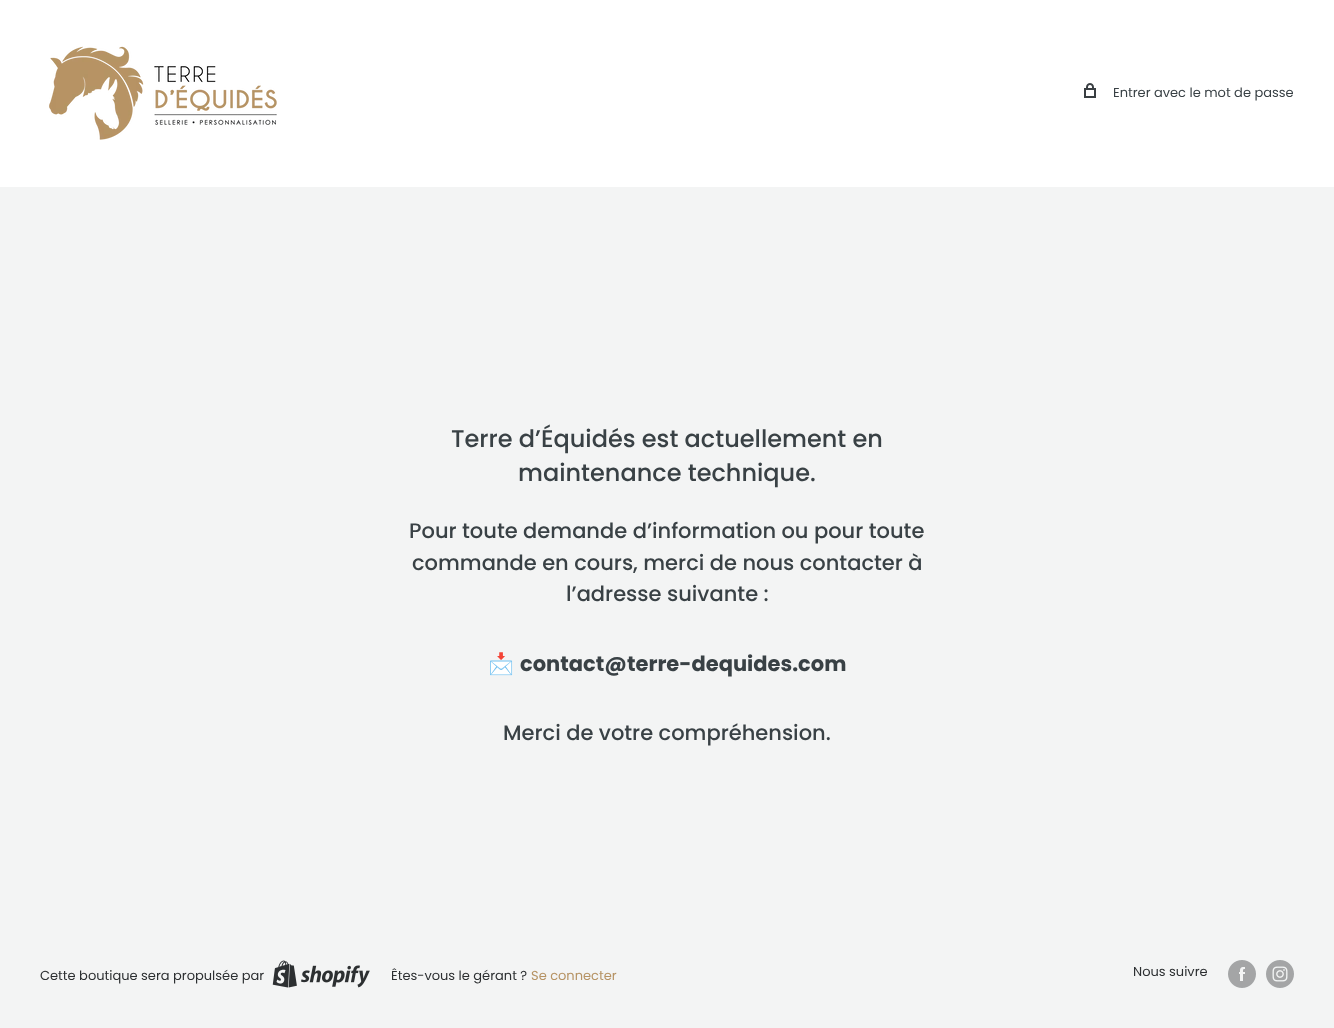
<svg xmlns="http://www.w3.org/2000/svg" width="1334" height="1028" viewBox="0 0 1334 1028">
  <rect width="100%" height="100%" fill="#f3f4f4"/>
  <path d="M0 0h1334v187H0z" fill="#fff"/>
  <image x="49" y="46" width="228" height="94" href="img/1.png"/>
  <image x="1084" y="83" width="12" height="15" href="img/2.png"/>
  <image x="272" y="960" width="98" height="28" href="img/3.png"/>
  <image x="1228" y="960" width="28" height="28" href="img/4.png"/>
  <image x="1266" y="960" width="28" height="28" href="img/5.png"/>
  <text x="1113" y="97" font-family="Poppins" font-size="13" fill="#394145">Entrer avec le mot de passe</text>
  <g font-family="Poppins" font-size="24" font-weight="500" fill="#394145">
    <text x="451" y="447">Terre d’Équidés est actuellement en</text>
    <text x="518" y="481">maintenance technique.</text>
  </g>
  <g font-family="Poppins" font-size="21" font-weight="500" fill="#394145">
    <text x="409" y="538">Pour toute demande d’information ou pour toute</text>
    <text x="412" y="570">commande en cours, merci de nous contacter à</text>
    <text x="566" y="601">l’adresse suivante :</text>
  </g>
  <text x="488" y="671" font-family="Noto Color Emoji" font-size="21" fill="#394145">📩</text>
  <text x="520" y="671" font-family="Poppins" font-size="21" font-weight="bold" fill="#394145">contact@terre-dequides.com</text>
  <text x="503" y="740" font-family="Poppins" font-size="21" font-weight="500" fill="#394145">Merci de votre compréhension.</text>
  <g font-family="Poppins" font-size="13" fill="#2c2f31">
    <text x="40" y="980">Cette boutique sera propulsée par</text>
    <text x="391" y="980">Êtes-vous le gérant ?</text>
  </g>
  <text x="531" y="980" font-family="Poppins" font-size="13" fill="#b69364">Se connecter</text>
  <text x="1133" y="976" font-family="Poppins" font-size="13" fill="#2c2f31">Nous suivre</text>
</svg>
